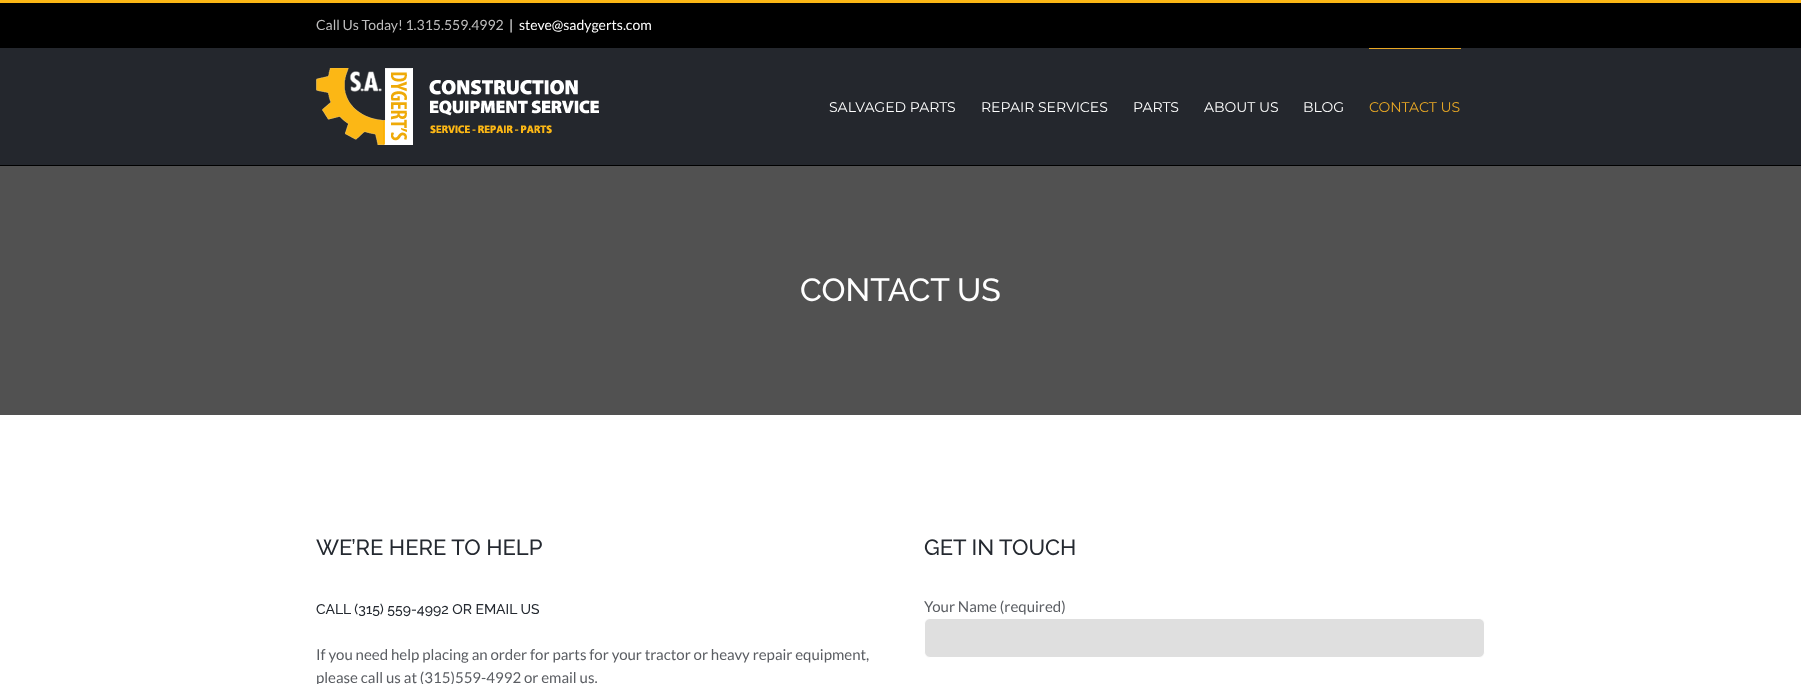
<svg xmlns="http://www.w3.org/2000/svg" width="1801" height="684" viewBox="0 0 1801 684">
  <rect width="100%" height="100%" fill="#fff"/>
  <path d="M0 3h1801v45H0z" fill="#000"/>
  <path d="M0 0h1801v3H0z" fill="#fcb715"/>
  <path d="M0 48h1801v117H0z" fill="#24272d"/>
  <path d="M0 165h1801v1H0z" fill="#000"/>
  <image x="316" y="68" width="283" height="77" href="img/1.png"/>
  <path d="M1369 48h92v1H1369z" fill="#e9a825"/>
  <path d="M0 166h1801v249H0z" fill="#515151"/>
  <rect x="924.5" y="618.5" width="560" height="39" rx="5.5" fill="#dfdfdf" stroke="#fff"/>
  <text x="316" y="30" font-family="Lato" font-size="14" fill="#bebdbd">Call Us Today! 1.315.559.4992</text>
  <g font-family="Lato" font-size="14" fill="#fff">
    <text x="509" y="30">|</text>
    <text x="519" y="30">steve@sadygerts.com</text>
  </g>
  <g font-family="Montserrat" font-size="14" font-weight="100" fill="#fff">
    <text x="829" y="112">SALVAGED PARTS</text>
    <text x="981" y="112">REPAIR SERVICES</text>
    <text x="1133" y="112">PARTS</text>
    <text x="1204" y="112">ABOUT US</text>
    <text x="1303" y="112">BLOG</text>
  </g>
  <text x="1369" y="112" font-family="Montserrat" font-size="14" font-weight="100" fill="#e9a825">CONTACT US</text>
  <text x="800" y="301" font-family="Raleway" font-size="32" font-weight="100" fill="#fff">CONTACT US</text>
  <text x="316" y="555" font-family="Raleway" font-size="22" font-weight="100" fill="#242930">WE’RE HERE TO HELP</text>
  <text x="316" y="614" font-family="Raleway" font-size="14" font-weight="100" fill="#242930">CALL (315) 559-4992 OR EMAIL US</text>
  <g font-family="Lato" font-size="15" fill="#5a5d62">
    <text x="316" y="660">If you need help placing an order for parts for your tractor or heavy repair equipment,</text>
    <text x="316" y="683">please call us at (315)559-4992 or email us.</text>
  </g>
  <text x="924" y="555" font-family="Raleway" font-size="22" font-weight="100" fill="#242930">GET IN TOUCH</text>
  <text x="924" y="612" font-family="Lato" font-size="15" fill="#5a5d62">Your Name (required)</text>
</svg>
